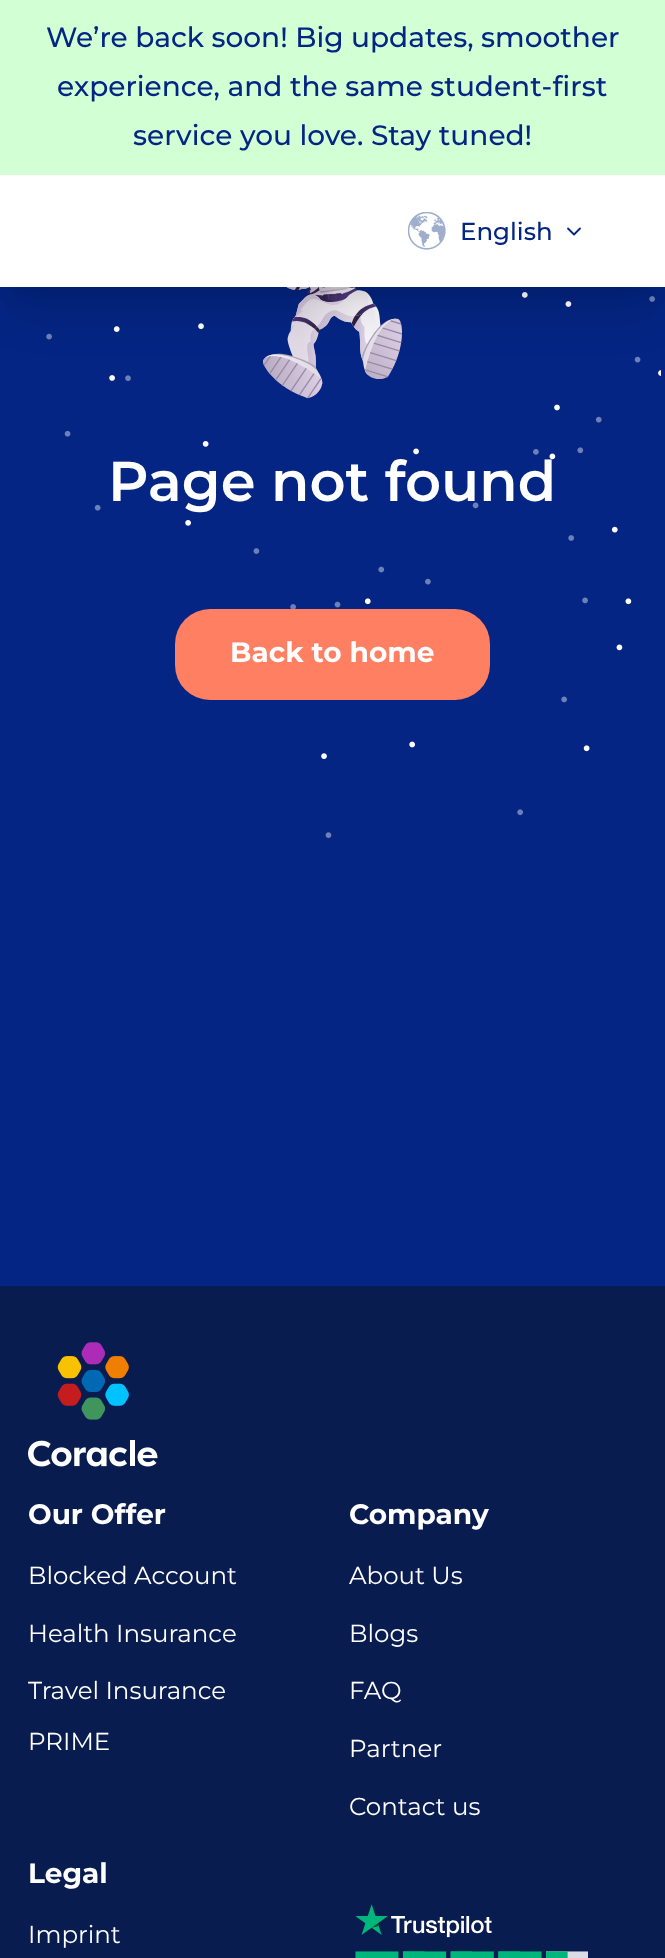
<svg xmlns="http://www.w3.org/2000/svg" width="665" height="1958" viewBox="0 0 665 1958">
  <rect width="100%" height="100%" fill="#091c50"/>
  <path d="M0 287h665v999H0z" fill="#042583"/>
  <image x="263" y="287" width="139" height="112" href="img/2.png"/>
  <image x="28" y="1342" width="130" height="125" href="img/4.png"/>
  <image x="355" y="1904" width="233" height="54" href="img/5.png"/>
  <text x="108" y="501" font-family="Montserrat" font-size="56" font-weight="600" fill="#fefefe">Page not found</text>
  <image x="46" y="292" width="615" height="546" href="img/3.png"/>
  <path d="M9 44h647v269H9z" fill="#0000001a" filter="blur(22px)"/>
  <path d="M11 25h644v266H11z" fill="#0000001a" filter="blur(9px)"/>
  <path d="M0 175h665v112H0z" fill="#fff"/>
  <path d="M580 228.5L574 234.5L568 228.5" fill="none" stroke="#042583" stroke-width="1.8" stroke-linecap="round" stroke-linejoin="round"/>
  <text x="460" y="240" font-family="Montserrat" font-size="24.5" font-weight="500" fill="#042583">English</text>
  <image x="408" y="212" width="38" height="38" href="img/1.png"/>
  <path d="M0 0h665v175H0z" fill="#d2ffd4"/>
  <g font-family="Montserrat" font-size="28" font-weight="500" fill="#042583">
    <text x="133" y="145">service you love. Stay tuned!</text>
    <text x="57" y="96">experience, and the same student-first</text>
    <text x="46" y="47">We’re back soon! Big updates, smoother</text>
  </g>
  <rect x="175" y="609" width="315" height="91" rx="35" fill="#ff7f63"/>
  <g font-family="Montserrat" font-size="28" font-weight="bold" fill="#fefefe">
    <text x="230" y="662">Back to home</text>
    <text x="28" y="1524">Our Offer</text>
  </g>
  <g font-family="Montserrat" font-size="24.5" fill="#fefefe">
    <text x="28" y="1584">Blocked Account</text>
    <text x="28" y="1642">Health Insurance</text>
    <text x="28" y="1699">Travel Insurance</text>
    <text x="28" y="1750">PRIME</text>
  </g>
  <text x="349" y="1524" font-family="Montserrat" font-size="28" font-weight="bold" fill="#fefefe">Company</text>
  <g font-family="Montserrat" font-size="24.5" fill="#fefefe">
    <text x="349" y="1584">About Us</text>
    <text x="349" y="1642">Blogs</text>
    <text x="349" y="1699">FAQ</text>
    <text x="349" y="1757">Partner</text>
    <text x="349" y="1815">Contact us</text>
  </g>
  <text x="28" y="1883" font-family="Montserrat" font-size="28" font-weight="bold" fill="#fefefe">Legal</text>
  <text x="28" y="1943" font-family="Montserrat" font-size="24.5" fill="#fefefe">Imprint</text>
</svg>
